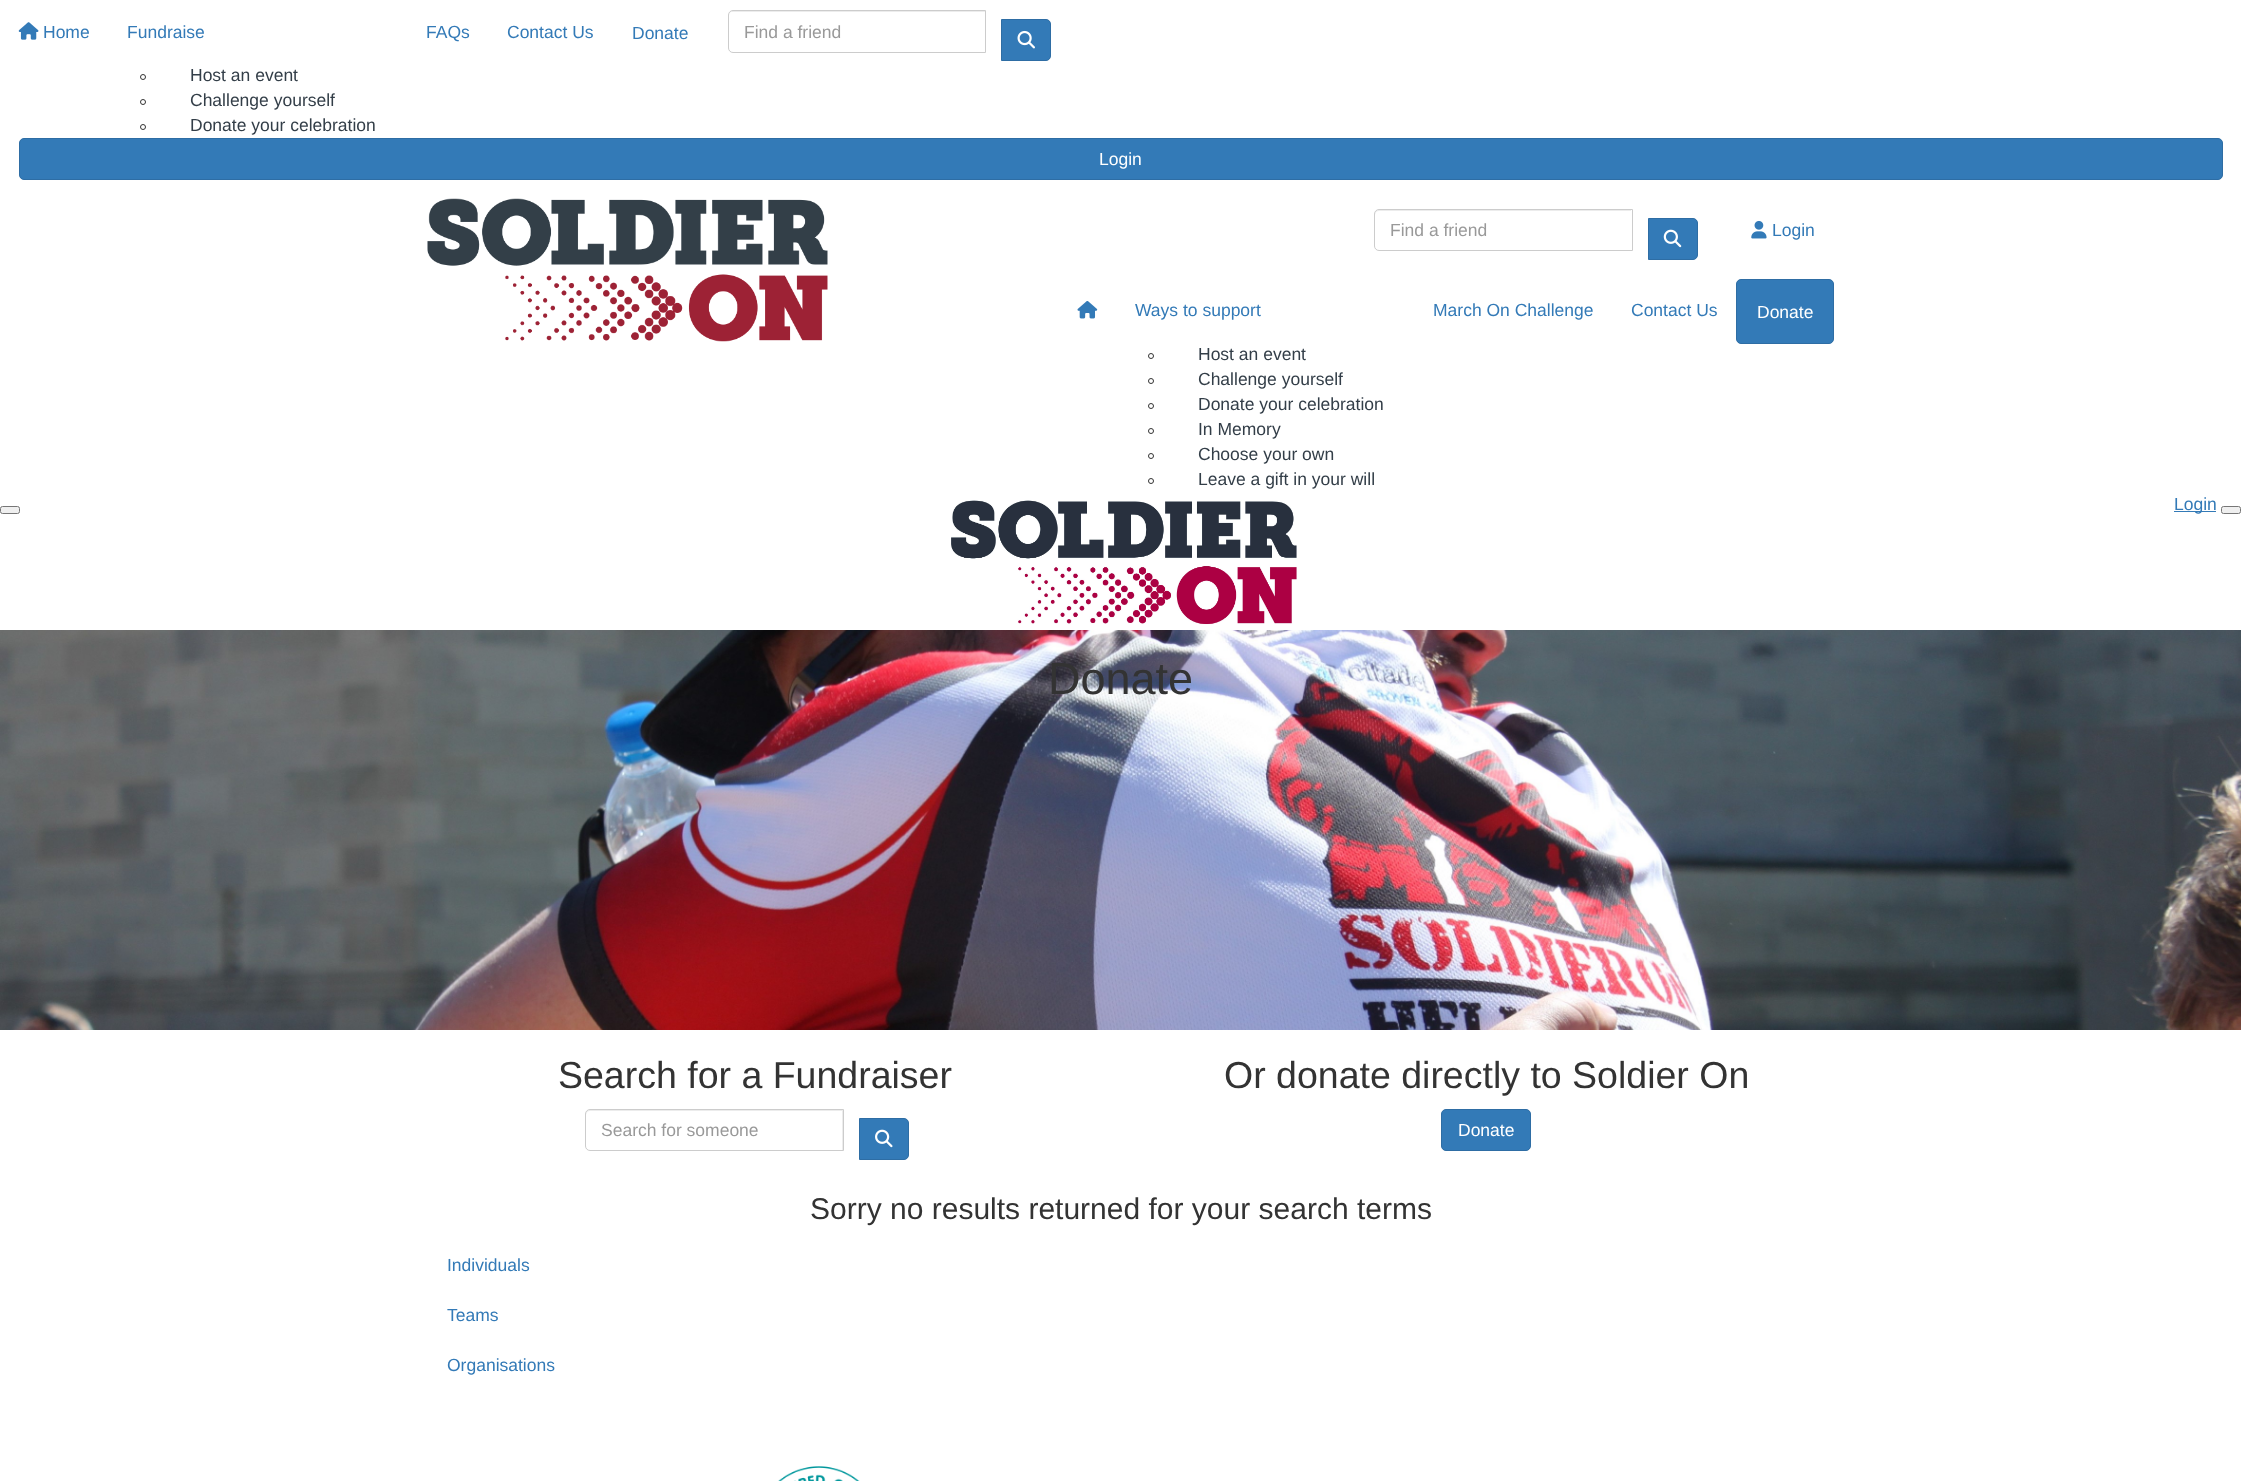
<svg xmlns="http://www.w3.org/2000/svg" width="2241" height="1481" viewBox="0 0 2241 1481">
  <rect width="100%" height="100%" fill="#fff"/>
  <image x="18" y="22" width="21" height="18" href="img/1.png"/>
  <circle cx="143" cy="77" r="2.5" fill="none" stroke="#333"/>
  <circle cx="143" cy="102" r="2.5" fill="none" stroke="#333"/>
  <circle cx="143" cy="127" r="2.5" fill="none" stroke="#333"/>
  <path d="M732 12H985V11H733C731 11 729 13 729 15V16C729 14 730 12 732 12Z" fill="#ececec"/>
  <path d="M733 10.5H985.5V52.5H733C730.5 52.5 728.5 50.5 728.5 48V15C728.5 12.5 730.5 10.5 733 10.5Z" fill="none" stroke="#ccc"/>
  <path d="M1001.5 19.5H1046C1048.5 19.5 1050.5 21.5 1050.5 24V56C1050.5 58.5 1048.5 60.5 1046 60.5H1001.5Z" fill="#337ab7" stroke="#2e6da4"/>
  <image x="1017" y="30" width="18" height="19" href="img/2.png"/>
  <rect x="19.5" y="138.5" width="2203" height="41" rx="4.5" fill="#337ab7" stroke="#2e6da4"/>
  <image x="427" y="198" width="401" height="144" href="img/3.png"/>
  <path d="M1379 211H1631V210H1379C1377 210 1375 212 1375 214V215C1375 213 1377 211 1379 211Z" fill="#ececec"/>
  <path d="M1379 209.5H1632.5V250.5H1379C1376.5 250.5 1374.5 248.5 1374.5 246V214C1374.5 211.5 1376.5 209.5 1379 209.5Z" fill="none" stroke="#ccc"/>
  <path d="M1648.5 218.5H1693C1695.5 218.5 1697.5 220.5 1697.5 223V255C1697.5 257.5 1695.5 259.5 1693 259.5H1648.5Z" fill="#337ab7" stroke="#2e6da4"/>
  <image x="1663" y="229" width="19" height="19" href="img/4.png"/>
  <image x="1751" y="220" width="16" height="19" href="img/5.png"/>
  <image x="1077" y="301" width="21" height="18" href="img/6.png"/>
  <circle cx="1151" cy="356" r="2.5" fill="none" stroke="#333"/>
  <circle cx="1151" cy="381" r="2.5" fill="none" stroke="#333"/>
  <circle cx="1151" cy="406" r="2.5" fill="none" stroke="#333"/>
  <circle cx="1151" cy="431" r="2.5" fill="none" stroke="#333"/>
  <circle cx="1151" cy="456" r="2.5" fill="none" stroke="#333"/>
  <circle cx="1151" cy="481" r="2.5" fill="none" stroke="#333"/>
  <rect x="1736.5" y="279.5" width="97" height="64" rx="4.5" fill="#337ab7" stroke="#2e6da4"/>
  <rect x="0.5" y="506.5" width="19" height="7" rx="2" fill="#efefef" stroke="#767676"/>
  <image x="951" y="500" width="346" height="125" href="img/7.png"/>
  <path d="M2174 511h42v1H2174z" fill="#337ab7"/>
  <rect x="2221.5" y="506.5" width="19" height="7" rx="2" fill="#efefef" stroke="#767676"/>
  <image x="0" y="630" width="2241" height="400" href="img/8.png"/>
  <path d="M590 1111H842V1150H843V1110H590C588 1110 586 1112 586 1114V1115C586 1113 588 1111 590 1111Z" fill="#ececec"/>
  <path d="M590 1109.5H843.5V1150.5H590C587.5 1150.5 585.5 1148.5 585.5 1146V1114C585.5 1111.5 587.5 1109.5 590 1109.5Z" fill="none" stroke="#ccc"/>
  <path d="M859.5 1118.5H904C906.5 1118.5 908.5 1120.5 908.5 1123V1155C908.5 1157.5 906.5 1159.5 904 1159.5H859.5Z" fill="#337ab7" stroke="#2e6da4"/>
  <image x="875" y="1129" width="18" height="19" href="img/9.png"/>
  <rect x="1441.5" y="1109.5" width="89" height="41" rx="4.5" fill="#337ab7" stroke="#2e6da4"/>
  <image x="778" y="1466" width="82" height="15" href="img/10.png"/>
  <g font-family="Liberation Sans" font-size="17.5" fill="#337ab7">
    <text x="43" y="38">Home</text>
    <text x="127" y="38">Fundraise</text>
  </g>
  <g font-family="Liberation Sans" font-size="17.5" fill="#333e48">
    <text x="190" y="81">Host an event</text>
    <text x="190" y="106">Challenge yourself</text>
    <text x="190" y="131">Donate your celebration</text>
  </g>
  <g font-family="Liberation Sans" font-size="17.5" fill="#337ab7">
    <text x="426" y="38">FAQs</text>
    <text x="507" y="38">Contact Us</text>
    <text x="632" y="39">Donate</text>
  </g>
  <text x="744" y="38" font-family="Liberation Sans" font-size="17.5" fill="#999">Find a friend</text>
  <text x="1099" y="165" font-family="Liberation Sans" font-size="17.5" fill="#fff">Login</text>
  <text x="1390" y="236" font-family="Liberation Sans" font-size="17.5" fill="#999">Find a friend</text>
  <g font-family="Liberation Sans" font-size="17.5" fill="#337ab7">
    <text x="1772" y="236">Login</text>
    <text x="1135" y="316">Ways to support</text>
  </g>
  <g font-family="Liberation Sans" font-size="17.5" fill="#333e48">
    <text x="1198" y="360">Host an event</text>
    <text x="1198" y="385">Challenge yourself</text>
    <text x="1198" y="410">Donate your celebration</text>
    <text x="1198" y="435">In Memory</text>
    <text x="1198" y="460">Choose your own</text>
    <text x="1198" y="485">Leave a gift in your will</text>
  </g>
  <g font-family="Liberation Sans" font-size="17.5" fill="#337ab7">
    <text x="1433" y="316">March On Challenge</text>
    <text x="1631" y="316">Contact Us</text>
  </g>
  <text x="1757" y="318" font-family="Liberation Sans" font-size="17.5" fill="#fff">Donate</text>
  <text x="2174" y="510" font-family="Liberation Sans" font-size="17.5" fill="#337ab7">Login</text>
  <text x="1048" y="694" font-family="Liberation Sans" font-size="45" fill="#333">Donate</text>
  <text x="558" y="1088" font-family="Liberation Sans" font-size="37.5" fill="#333">Search for a Fundraiser</text>
  <text x="601" y="1136" font-family="Liberation Sans" font-size="17.5" fill="#999">Search for someone</text>
  <text x="1224" y="1088" font-family="Liberation Sans" font-size="37.5" fill="#333">Or donate directly to Soldier On</text>
  <text x="1458" y="1136" font-family="Liberation Sans" font-size="17.5" fill="#fff">Donate</text>
  <text x="810" y="1219" font-family="Liberation Sans" font-size="30" fill="#333">Sorry no results returned for your search terms</text>
  <g font-family="Liberation Sans" font-size="17.5" fill="#337ab7">
    <text x="447" y="1271">Individuals</text>
    <text x="447" y="1321">Teams</text>
    <text x="447" y="1371">Organisations</text>
  </g>
</svg>
